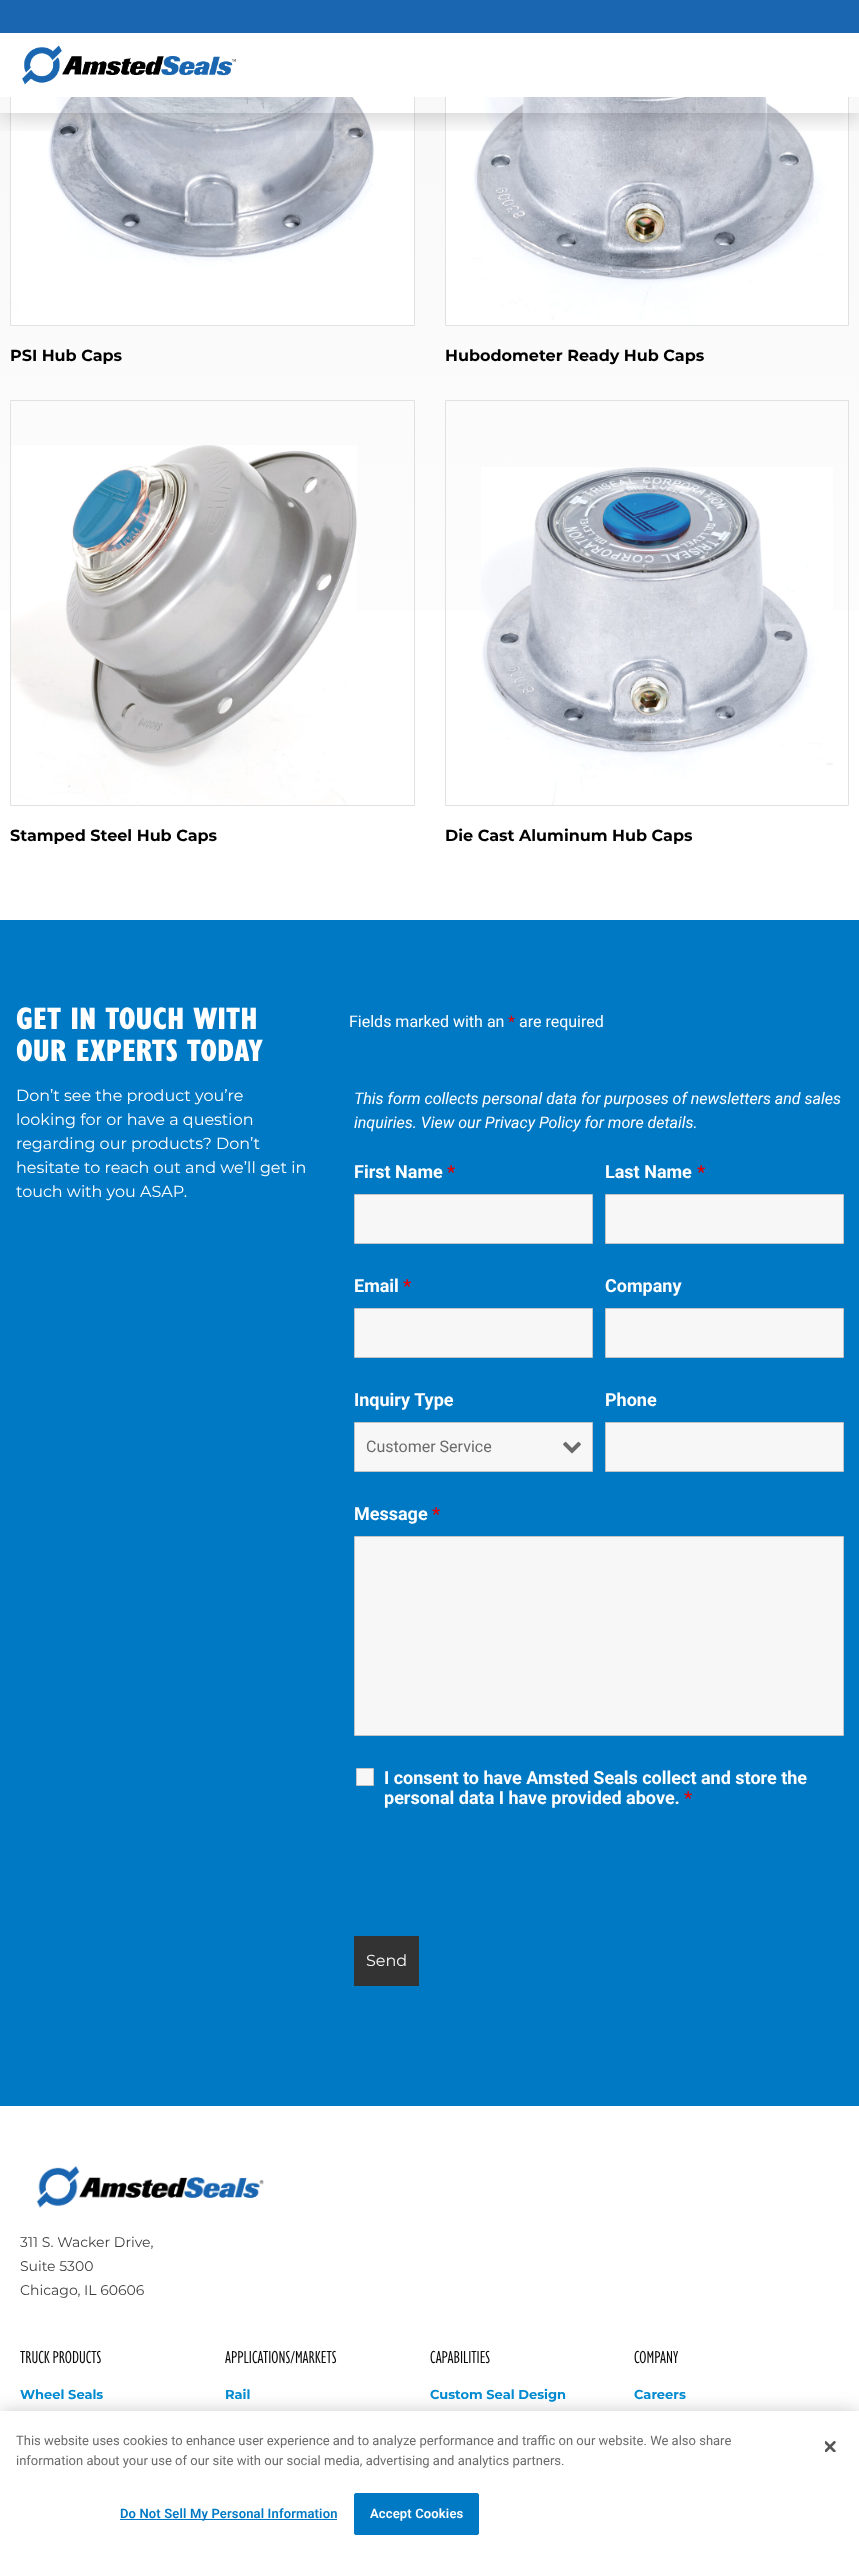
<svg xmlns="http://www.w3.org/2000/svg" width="859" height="2551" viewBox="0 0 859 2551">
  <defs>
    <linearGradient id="g1" gradientUnits="userSpaceOnUse" x1="429" y1="-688" x2="430" y2="920"><stop offset="0" stop-color="#f2f2f2"/><stop offset="1" stop-color="#fff"/></linearGradient>
    <clipPath id="clip1"><path d="M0 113h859v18H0z"/></clipPath>
  </defs>
  <rect width="100%" height="100%" fill="#fff"/>
  <path d="M0 97h859v514H0z" fill="url(#g1)"/>
  <path d="M10.5 -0.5h404v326H10.5z" fill="none" stroke="#e1e1e1"/>
  <image x="11" y="97" width="403" height="228" href="img/2.png"/>
  <path d="M445.5 -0.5h403v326H445.5z" fill="none" stroke="#e1e1e1"/>
  <image x="446" y="97" width="402" height="228" href="img/3.png"/>
  <g clip-path="url(#clip1)">
    <path d="M0 5h859v113H0z" fill="#0000002e" filter="blur(11px)"/>
  </g>
  <path d="M0 0h859v33H0z" fill="#1a66b1"/>
  <path d="M10 33h839v64H10z" fill="#fff"/>
  <image x="22" y="45" width="214" height="40" href="img/1.png"/>
  <path d="M10.5 400.5h404v405H10.5z" fill="none" stroke="#e1e1e1"/>
  <image x="11" y="445" width="346" height="360" href="img/4.png"/>
  <path d="M445.5 400.5h403v405H445.5z" fill="none" stroke="#e1e1e1"/>
  <image x="481" y="467" width="352" height="338" href="img/5.png"/>
  <path d="M0 920h859v1186H0z" fill="#0079c4"/>
  <path d="M354.5 1194.5h238v49H354.5z" fill="#f7f7f7" stroke="#c4c4c4"/>
  <path d="M605.5 1194.5h238v49H605.5z" fill="#f7f7f7" stroke="#c4c4c4"/>
  <path d="M354.5 1308.5h238v49H354.5z" fill="#f7f7f7" stroke="#c4c4c4"/>
  <path d="M605.5 1308.5h238v49H605.5z" fill="#f7f7f7" stroke="#c4c4c4"/>
  <path d="M354.5 1422.5h238v49H354.5z" fill="#f7f7f7" stroke="#c4c4c4"/>
  <image x="563" y="1441" width="18" height="13" href="img/6.png"/>
  <path d="M605.5 1422.5h238v49H605.5z" fill="#f7f7f7" stroke="#c4c4c4"/>
  <path d="M354.5 1536.5h489v199H354.5z" fill="#f7f7f7" stroke="#c4c4c4"/>
  <path d="M356.5 1768.5h17v17H356.5z" fill="#f7f7f7" stroke="#c4c4c4"/>
  <path d="M354 1936h65v50H354z" fill="#333"/>
  <image x="36" y="2166" width="228" height="42" href="img/7.png"/>
  <path d="M0 2411h859v140H0z" fill="#00000033" filter="blur(9px)"/>
  <path d="M0 2411h859v140H0z" fill="#fff"/>
  <image x="825" y="2441" width="11" height="11" href="img/8.png"/>
  <path d="M120 2519h217v1H120z" fill="#0079c4"/>
  <rect x="354.5" y="2493.5" width="124" height="41" rx="1.5" fill="#0079c4" stroke="#0079c4"/>
  <g font-family="Montserrat" font-size="16" font-weight="bold" fill="#000">
    <text x="10" y="361">PSI Hub Caps</text>
    <text x="445" y="361">Hubodometer Ready Hub Caps</text>
    <text x="10" y="841">Stamped Steel Hub Caps</text>
    <text x="445" y="841">Die Cast Aluminum Hub Caps</text>
  </g>
  <g font-family="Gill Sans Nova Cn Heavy" font-size="32" font-weight="900" fill="#fff">
    <text x="16" y="1029">GET IN TOUCH WITH</text>
    <text x="16" y="1061">OUR EXPERTS TODAY</text>
  </g>
  <g font-family="Montserrat" font-size="16" fill="#fff">
    <text x="16" y="1101">Don’t see the product you’re</text>
    <text x="16" y="1125">looking for or have a question</text>
    <text x="16" y="1149">regarding our products? Don’t</text>
    <text x="16" y="1173">hesitate to reach out and we’ll get in</text>
    <text x="16" y="1197">touch with you ASAP.</text>
  </g>
  <text x="349" y="1027" font-family="Roboto" font-size="16" fill="#fff">Fields marked with an</text>
  <text x="508" y="1027" font-family="Roboto" font-size="16" fill="#e80000">*</text>
  <text x="519" y="1027" font-family="Roboto" font-size="16" fill="#fff">are required</text>
  <g font-family="Roboto" font-size="16" font-style="italic" fill="#fff">
    <text x="354" y="1104">This form collects personal data for purposes of newsletters and sales</text>
    <text x="354" y="1128">inquiries. View our Privacy Policy for more details.</text>
  </g>
  <text x="354" y="1178" font-family="Roboto" font-size="18" font-weight="bold" fill="#fff">First Name</text>
  <text x="447" y="1178" font-family="Roboto" font-size="18" font-weight="bold" fill="#e80000">*</text>
  <text x="605" y="1178" font-family="Roboto" font-size="18" font-weight="bold" fill="#fff">Last Name</text>
  <text x="697" y="1178" font-family="Roboto" font-size="18" font-weight="bold" fill="#e80000">*</text>
  <text x="354" y="1292" font-family="Roboto" font-size="18" font-weight="bold" fill="#fff">Email</text>
  <text x="403" y="1292" font-family="Roboto" font-size="18" font-weight="bold" fill="#e80000">*</text>
  <g font-family="Roboto" font-size="18" font-weight="bold" fill="#fff">
    <text x="605" y="1292">Company</text>
    <text x="354" y="1406">Inquiry Type</text>
  </g>
  <text x="366" y="1452" font-family="Roboto" font-size="16" fill="#6b6b6b">Customer Service</text>
  <g font-family="Roboto" font-size="18" font-weight="bold" fill="#fff">
    <text x="605" y="1406">Phone</text>
    <text x="354" y="1520">Message</text>
  </g>
  <text x="432" y="1520" font-family="Roboto" font-size="18" font-weight="bold" fill="#e80000">*</text>
  <g font-family="Roboto" font-size="18" font-weight="bold" fill="#fff">
    <text x="384" y="1784">I consent to have Amsted Seals collect and store the</text>
    <text x="384" y="1804">personal data I have provided above.</text>
  </g>
  <text x="684" y="1804" font-family="Roboto" font-size="18" font-weight="bold" fill="#e80000">*</text>
  <text x="366" y="1966" font-family="Montserrat" font-size="16" fill="#f7f7f7">Send</text>
  <g font-family="Montserrat" font-size="14" fill="#3f3f3f">
    <text x="20" y="2247">311 S. Wacker Drive,</text>
    <text x="20" y="2271">Suite 5300</text>
    <text x="20" y="2295">Chicago, IL 60606</text>
  </g>
  <text x="20" y="2363" font-family="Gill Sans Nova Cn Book" font-size="18" fill="#0c0c0c">TRUCK PRODUCTS</text>
  <text x="20" y="2399" font-family="Montserrat" font-size="13" font-weight="bold" fill="#008ad0">Wheel Seals</text>
  <text x="225" y="2363" font-family="Gill Sans Nova Cn Book" font-size="18" fill="#0c0c0c">APPLICATIONS/MARKETS</text>
  <text x="225" y="2399" font-family="Montserrat" font-size="13" font-weight="bold" fill="#008ad0">Rail</text>
  <text x="430" y="2363" font-family="Gill Sans Nova Cn Book" font-size="18" fill="#0c0c0c">CAPABILITIES</text>
  <text x="430" y="2399" font-family="Montserrat" font-size="13" font-weight="bold" fill="#008ad0">Custom Seal Design</text>
  <text x="634" y="2363" font-family="Gill Sans Nova Cn Book" font-size="18" fill="#0c0c0c">COMPANY</text>
  <text x="634" y="2399" font-family="Montserrat" font-size="13" font-weight="bold" fill="#008ad0">Careers</text>
  <g font-family="Roboto" font-size="13" fill="#6b6b6b">
    <text x="16" y="2445">This website uses cookies to enhance user experience and to analyze performance and traffic on our website. We also share</text>
    <text x="16" y="2465">information about your use of our site with our social media, advertising and analytics partners.</text>
  </g>
  <text x="120" y="2518" font-family="Roboto" font-size="13" font-weight="600" letter-spacing="0.15" fill="#0079c4">Do Not Sell My Personal Information</text>
  <text x="370" y="2518" font-family="Roboto" font-size="13" font-weight="600" letter-spacing="0.15" fill="#fff">Accept Cookies</text>
</svg>
